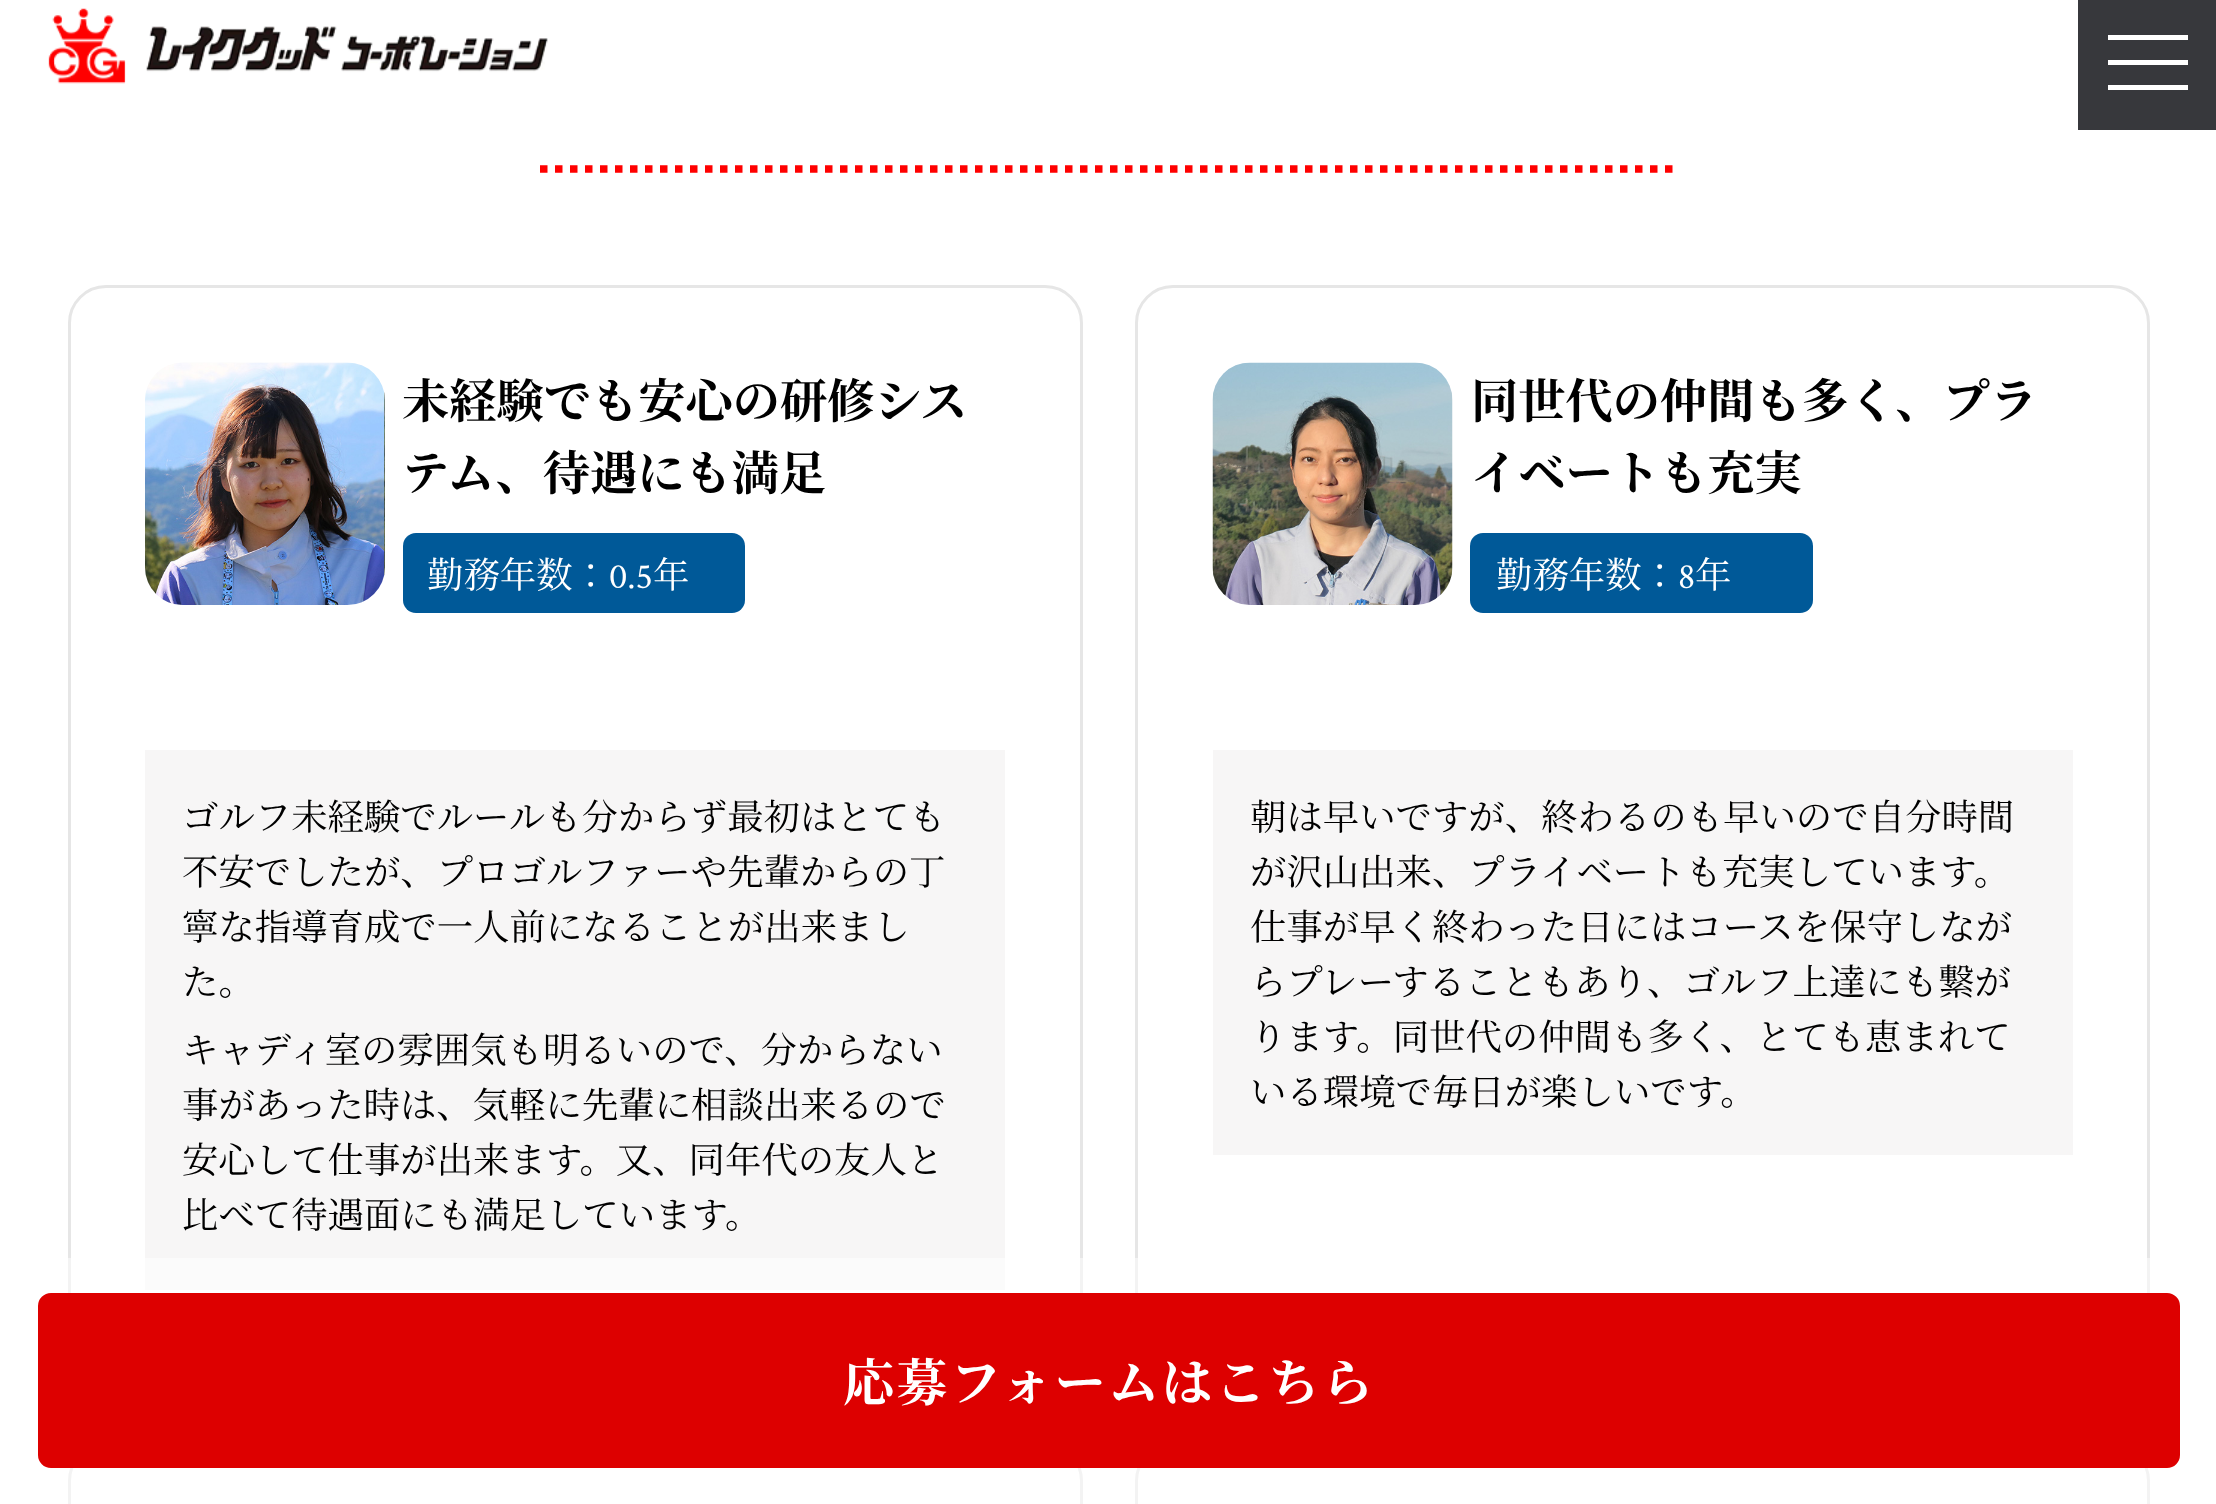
<svg xmlns="http://www.w3.org/2000/svg" width="2216" height="1504" viewBox="0 0 2216 1504">
  <rect width="100%" height="100%" fill="#fff"/>
  <image x="48" y="8" width="500" height="76" href="img/1.png"/>
  <path d="M2078 0h138v130H2078z" fill="#37383c"/>
  <path d="M2108 60h80v5H2108z" fill="#fff"/>
  <path d="M2108 35h80v5H2108z" fill="#fff"/>
  <path d="M2108 85h80v5H2108z" fill="#fff"/>
  <path d="M540 169H1677.5" fill="none" stroke="#f00" stroke-width="7.5" stroke-dasharray="7.5 7.5"/>
  <rect x="69.5" y="286.5" width="1012" height="1105" rx="36.5" fill="none" stroke="#e6e6e6" stroke-width="3"/>
  <image x="145" y="362" width="240" height="243" href="img/2.png"/>
  <rect x="403" y="533" width="342" height="80" rx="13" fill="#005998"/>
  <path d="M145 750h860v540H145z" fill="#f7f6f6"/>
  <rect x="1136.5" y="286.5" width="1012" height="1105" rx="36.5" fill="none" stroke="#e6e6e6" stroke-width="3"/>
  <image x="1212" y="362" width="241" height="243" href="img/3.png"/>
  <rect x="1470" y="533" width="343" height="80" rx="13" fill="#005998"/>
  <path d="M1213 750h860v405H1213z" fill="#f7f6f6"/>
  <rect x="69.5" y="1444.5" width="1012" height="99" rx="36.5" fill="none" stroke="#e6e6e6" stroke-width="3"/>
  <rect x="1136.5" y="1444.5" width="1012" height="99" rx="36.5" fill="none" stroke="#e6e6e6" stroke-width="3"/>
  <path d="M68 1258h2082v246H68z" fill="#ffffff80"/>
  <rect x="42" y="1297" width="2134" height="167" rx="9" fill="#d00" stroke="#d00" stroke-width="8"/>
  <g font-family="Noto Serif JP" font-size="47.25" font-weight="bold" fill="#000">
    <text x="402" y="418">未経験でも安心の研修シス</text>
    <text x="402" y="490">テム、待遇にも満足</text>
  </g>
  <text x="427" y="588" font-family="Noto Serif JP" font-size="36.4" font-weight="200" fill="#fff">勤務年数：</text>
  <text x="609" y="588" font-family="Crimson Text" font-size="36.4" fill="#fff">0.5</text>
  <text x="653" y="588" font-family="Noto Serif JP" font-size="36.4" font-weight="200" fill="#fff">年</text>
  <g font-family="Noto Serif JP" font-size="36.4" font-weight="200" fill="#000">
    <text x="182" y="830">ゴルフ未経験でルールも分からず最初はとても</text>
    <text x="182" y="885">不安でしたが、プロゴルファーや先輩からの丁</text>
    <text x="182" y="940">寧な指導育成で一人前になることが出来まし</text>
    <text x="182" y="995">た。</text>
    <text x="182" y="1063">キャディ室の雰囲気も明るいので、分からない</text>
    <text x="182" y="1118">事があった時は、気軽に先輩に相談出来るので</text>
    <text x="182" y="1173">安心して仕事が出来ます。又、同年代の友人と</text>
    <text x="182" y="1228">比べて待遇面にも満足しています。</text>
  </g>
  <g font-family="Noto Serif JP" font-size="47.25" font-weight="bold" fill="#000">
    <text x="1471" y="418">同世代の仲間も多く、プラ</text>
    <text x="1471" y="490">イベートも充実</text>
  </g>
  <text x="1496" y="588" font-family="Noto Serif JP" font-size="36.4" font-weight="200" fill="#fff">勤務年数：</text>
  <text x="1678" y="588" font-family="Crimson Text" font-size="36.4" fill="#fff">8</text>
  <text x="1695" y="588" font-family="Noto Serif JP" font-size="36.4" font-weight="200" fill="#fff">年</text>
  <g font-family="Noto Serif JP" font-size="36.4" font-weight="200" fill="#000">
    <text x="1250" y="830">朝は早いですが、終わるのも早いので自分時間</text>
    <text x="1250" y="885">が沢山出来、プライベートも充実しています。</text>
    <text x="1250" y="940">仕事が早く終わった日にはコースを保守しなが</text>
    <text x="1250" y="995">らプレーすることもあり、ゴルフ上達にも繋が</text>
    <text x="1250" y="1050">ります。同世代の仲間も多く、とても恵まれて</text>
    <text x="1250" y="1105">いる環境で毎日が楽しいです。</text>
  </g>
  <text x="843" y="1401" font-family="Noto Serif JP" font-size="51" font-weight="bold" letter-spacing="2.5" fill="#fff">応募フォームはこちら</text>
</svg>
